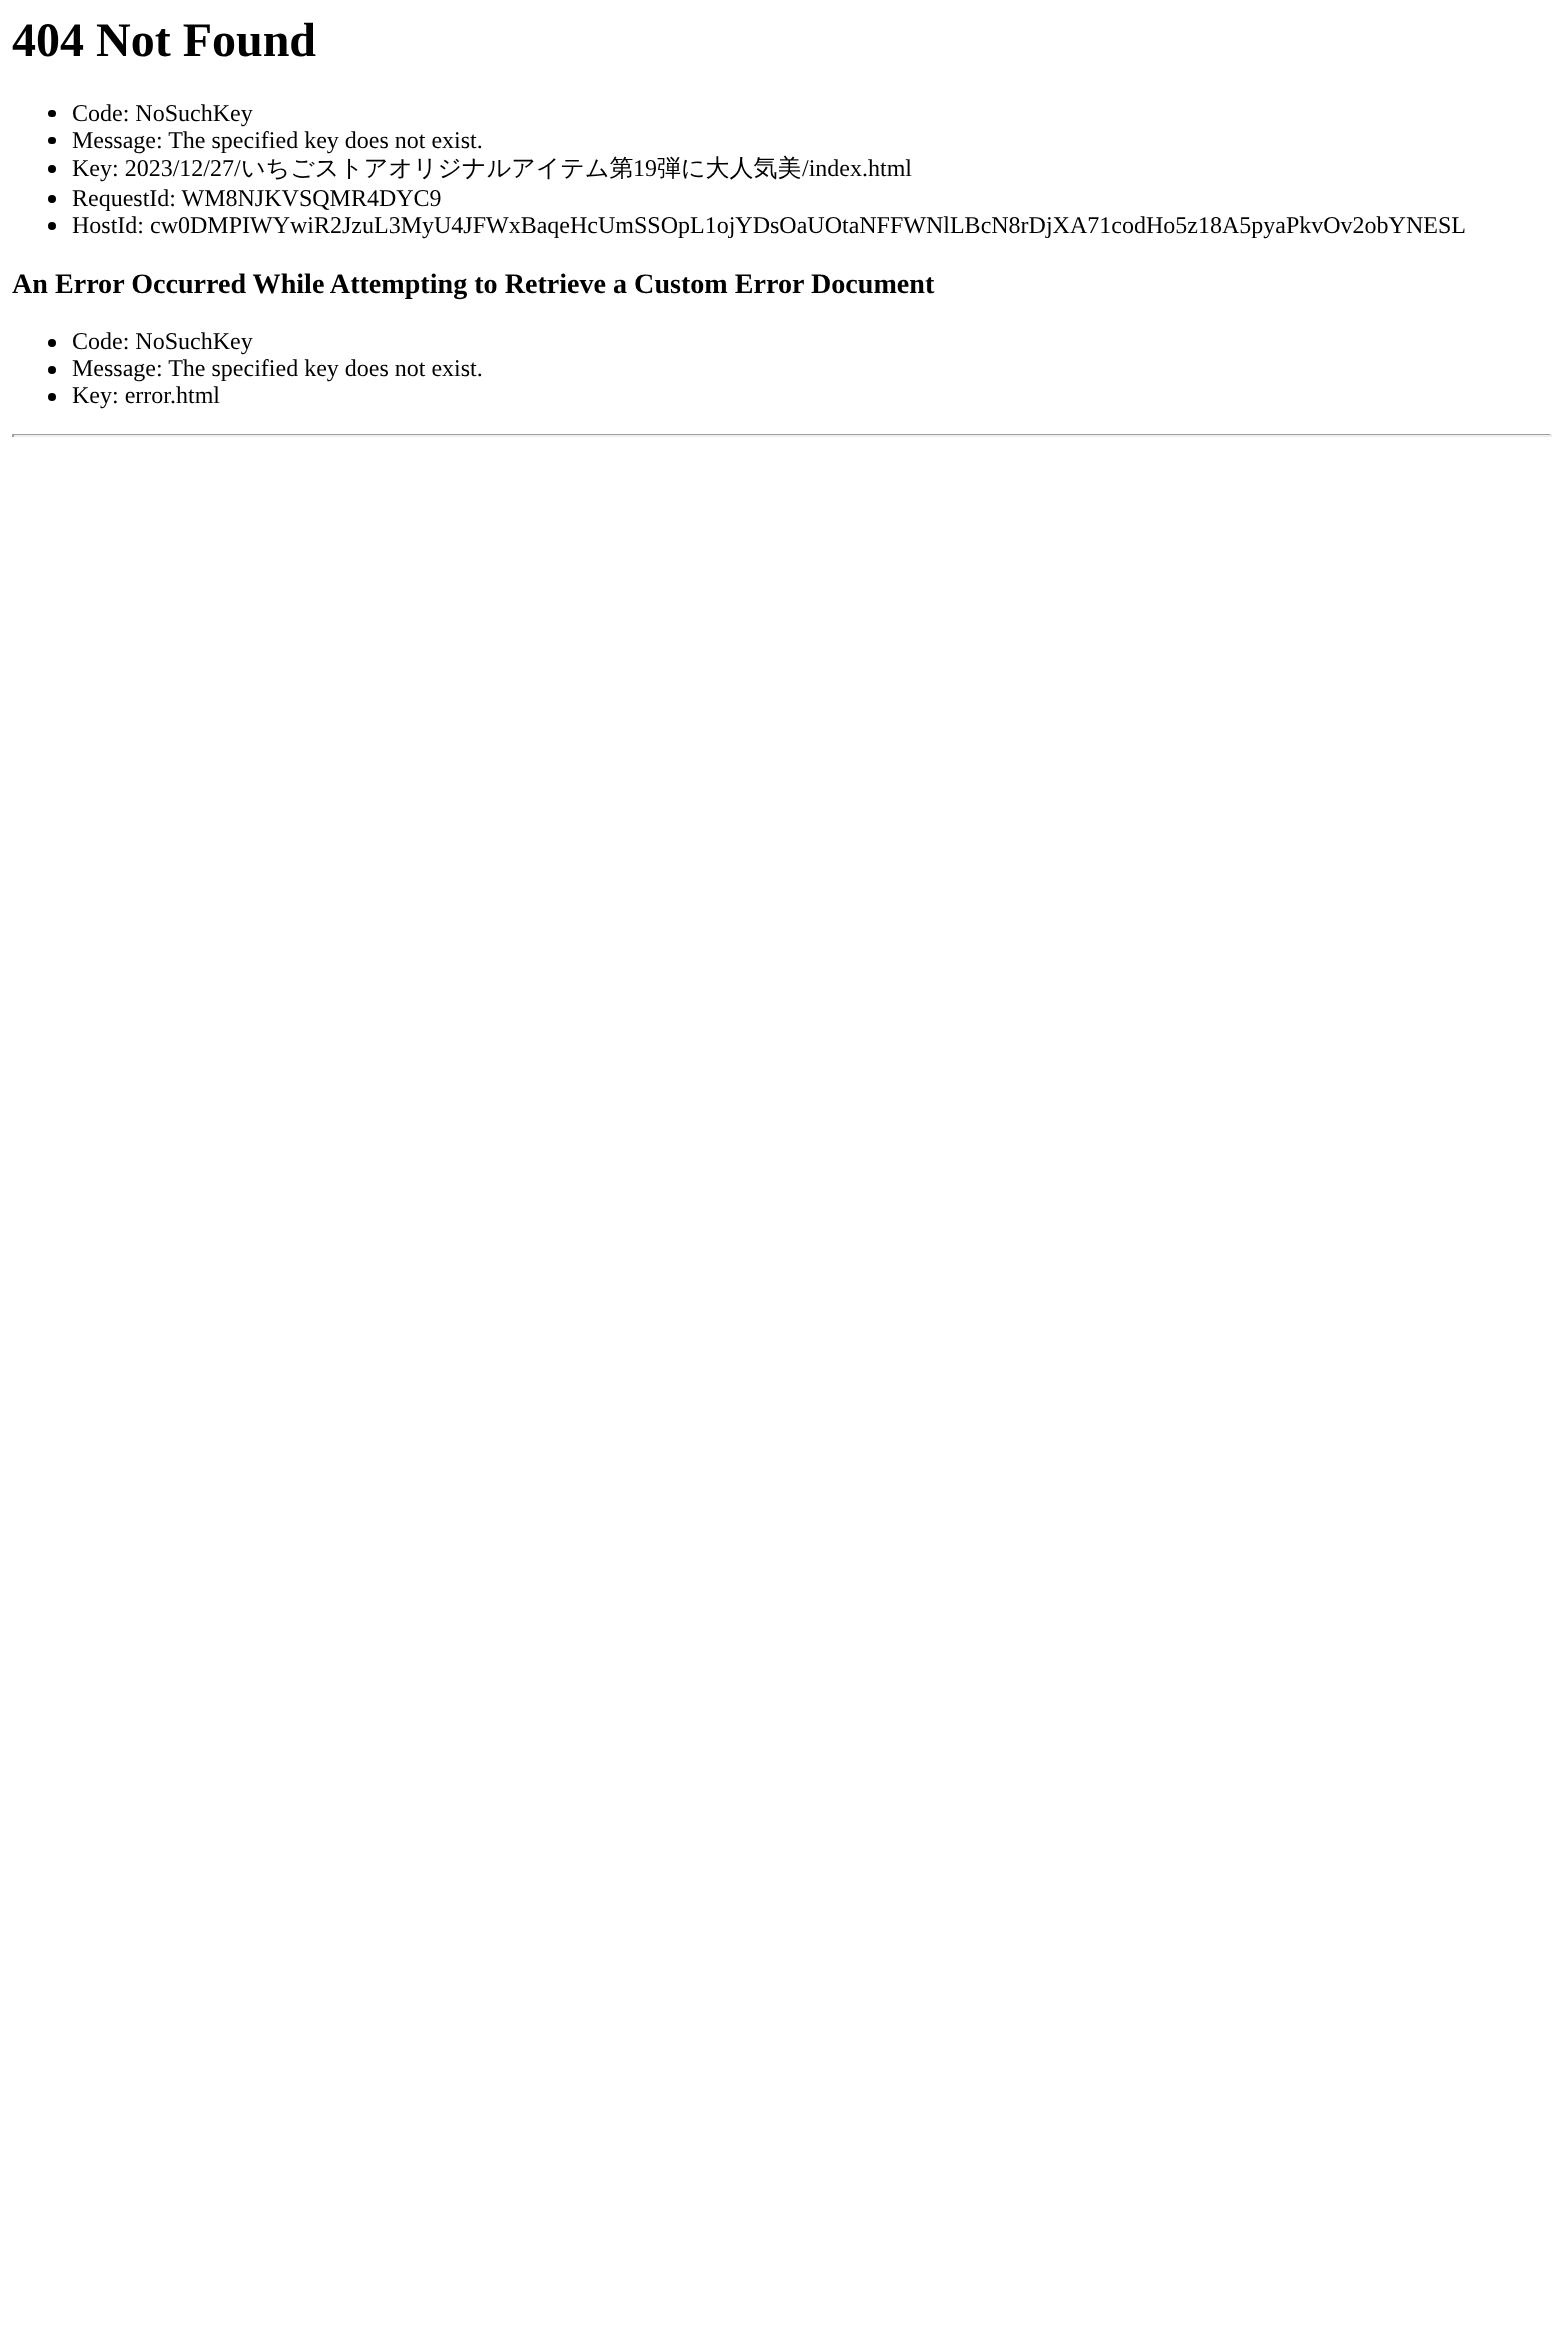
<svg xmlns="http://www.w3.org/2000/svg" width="1562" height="2342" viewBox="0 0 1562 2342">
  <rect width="100%" height="100%" fill="#fff"/>
  <rect x="48" y="110" width="8" height="7" rx="3.5" fill="#000"/>
  <rect x="48" y="137" width="8" height="7" rx="3.5" fill="#000"/>
  <circle cx="52" cy="169" r="4" fill="#000"/>
  <circle cx="52" cy="199" r="4" fill="#000"/>
  <circle cx="52" cy="226" r="4" fill="#000"/>
  <circle cx="52" cy="343" r="4" fill="#000"/>
  <circle cx="52" cy="370" r="4" fill="#000"/>
  <circle cx="52" cy="397" r="4" fill="#000"/>
  <path d="M12 434h1539v1H12z" fill="#9f9f9f"/>
  <path d="M1550 434h2v3H1550z" fill="#eee"/>
  <path d="M12 435h1539v2H12z" fill="#eee"/>
  <path d="M12 434h2v3H12z" fill="#9f9f9f"/>
  <text x="12" y="56" font-family="Liberation Serif" font-size="48" font-weight="bold" fill="#000">404 Not Found</text>
  <g font-family="Liberation Serif" font-size="24" fill="#000">
    <text x="72" y="121">Code: NoSuchKey</text>
    <text x="72" y="148">Message: The specified key does not exist.</text>
    <text x="72" y="176">Key: 2023/12/27/</text>
  </g>
  <text x="241" y="176" font-family="WenQuanYi Zen Hei" font-size="24" font-weight="500" fill="#000">いちごストアオリジナルアイテム第</text>
  <text x="633" y="176" font-family="Liberation Serif" font-size="24" fill="#000">19</text>
  <text x="657" y="176" font-family="WenQuanYi Zen Hei" font-size="24" font-weight="500" fill="#000">弾に大人気美</text>
  <g font-family="Liberation Serif" font-size="24" fill="#000">
    <text x="802" y="176">/index.html</text>
    <text x="72" y="206">RequestId: WM8NJKVSQMR4DYC9</text>
    <text x="72" y="233">HostId: cw0DMPIWYwiR2JzuL3MyU4JFWxBaqeHcUmSSOpL1ojYDsOaUOtaNFFWNlLBcN8rDjXA71codHo5z18A5pyaPkvOv2obYNESL</text>
  </g>
  <text x="12" y="293" font-family="Liberation Serif" font-size="28.1" font-weight="bold" fill="#000">An Error Occurred While Attempting to Retrieve a Custom Error Document</text>
  <g font-family="Liberation Serif" font-size="24" fill="#000">
    <text x="72" y="349">Code: NoSuchKey</text>
    <text x="72" y="376">Message: The specified key does not exist.</text>
    <text x="72" y="403">Key: error.html</text>
  </g>
</svg>
